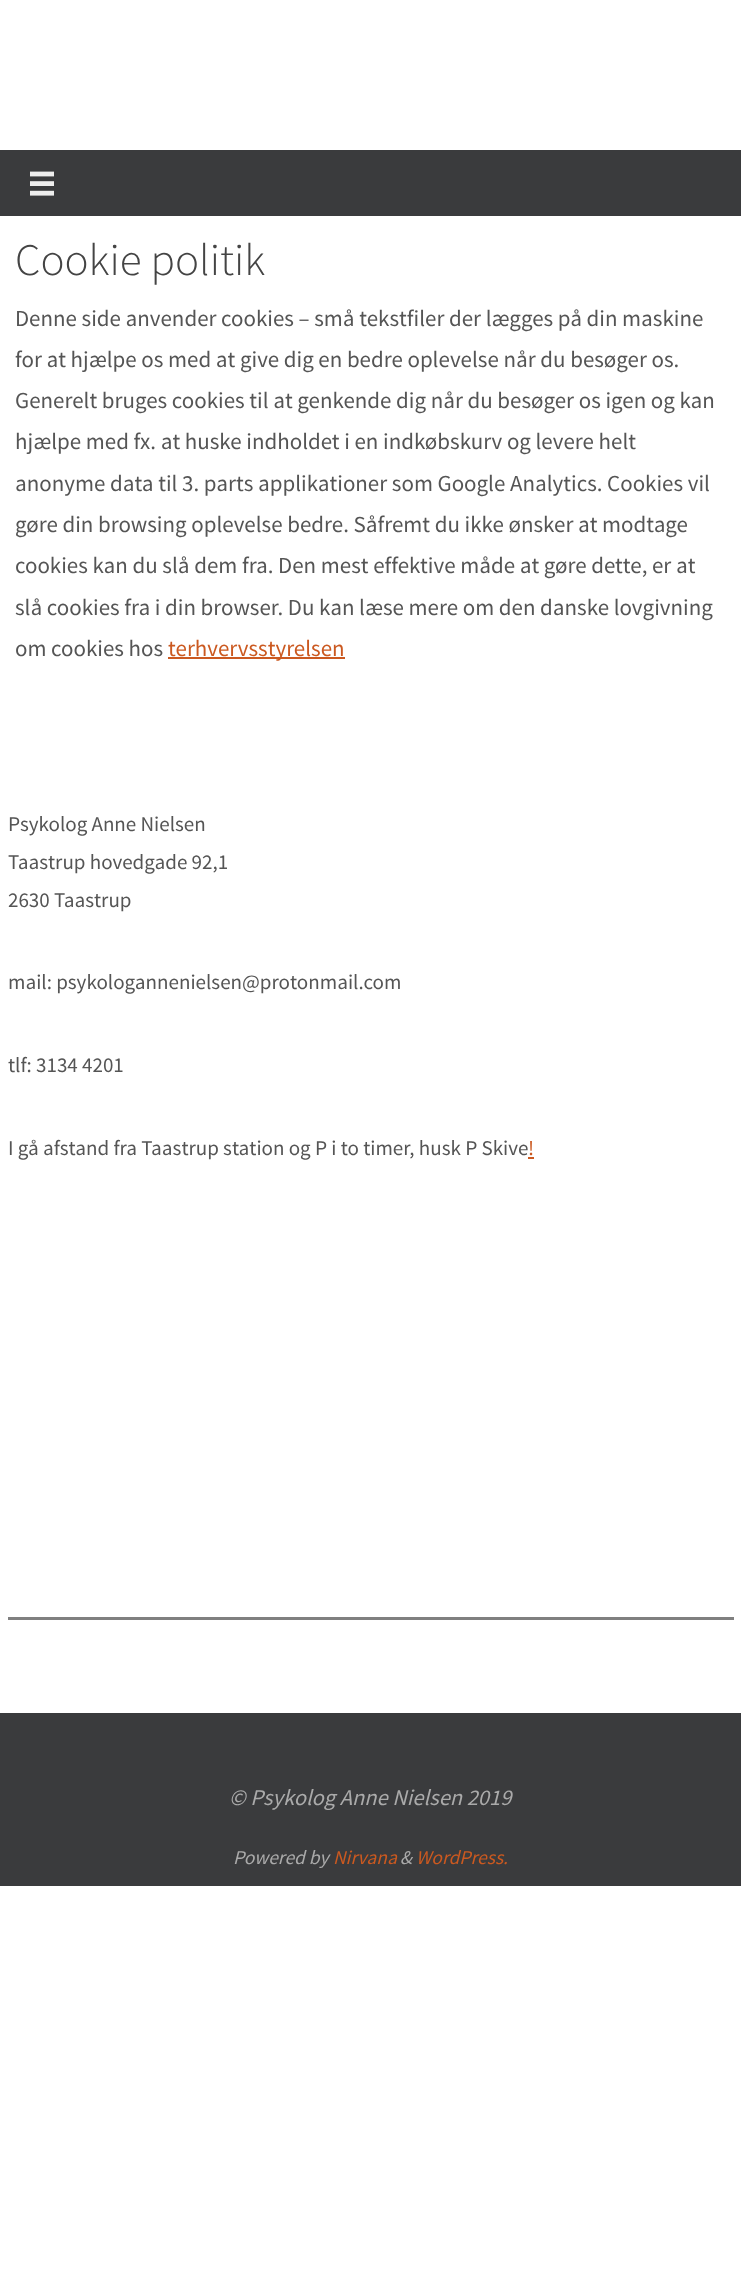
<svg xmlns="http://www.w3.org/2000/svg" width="741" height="2269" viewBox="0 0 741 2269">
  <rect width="100%" height="100%" fill="#fff"/>
  <path d="M0 150h741v66H0z" fill="#3a3b3d"/>
  <image x="30" y="171" width="24" height="25" href="img/1.png"/>
  <path d="M168 657h177v2H168z" fill="#cb5920"/>
  <path d="M528 1157h6v2H528z" fill="#cb5920"/>
  <path d="M8 1617h726v3H8z" fill="#808080"/>
  <path d="M0 1713h741v173H0z" fill="#3a3b3d"/>
  <text x="15" y="275" font-family="Source Sans Pro" font-size="45" font-weight="300" fill="#444">Cookie politik</text>
  <g font-family="Source Sans Pro" font-size="22.95" fill="#555">
    <text x="15" y="326">Denne side anvender cookies – små tekstfiler der lægges på din maskine</text>
    <text x="15" y="367">for at hjælpe os med at give dig en bedre oplevelse når du besøger os.</text>
    <text x="15" y="408">Generelt bruges cookies til at genkende dig når du besøger os igen og kan</text>
    <text x="15" y="449">hjælpe med fx. at huske indholdet i en indkøbskurv og levere helt</text>
    <text x="15" y="491">anonyme data til 3. parts applikationer som Google Analytics. Cookies vil</text>
    <text x="15" y="532">gøre din browsing oplevelse bedre. Såfremt du ikke ønsker at modtage</text>
    <text x="15" y="573">cookies kan du slå dem fra. Den mest effektive måde at gøre dette, er at</text>
    <text x="15" y="615">slå cookies fra i din browser. Du kan læse mere om den danske lovgivning</text>
    <text x="15" y="656">om cookies hos</text>
  </g>
  <text x="168" y="656" font-family="Source Sans Pro" font-size="22.95" fill="#cb5920">terhvervsstyrelsen</text>
  <g font-family="Source Sans Pro" font-size="21" fill="#555">
    <text x="8" y="831">Psykolog Anne Nielsen</text>
    <text x="8" y="869">Taastrup hovedgade 92,1</text>
    <text x="8" y="907">2630 Taastrup</text>
    <text x="8" y="989">mail: psykologannenielsen@protonmail.com</text>
    <text x="8" y="1072">tlf: 3134 4201</text>
    <text x="8" y="1155">I gå afstand fra Taastrup station og P i to timer, husk P Skive</text>
  </g>
  <text x="528" y="1155" font-family="Source Sans Pro" font-size="21" fill="#cb5920">!</text>
  <text x="229" y="1805" font-family="Source Sans Pro" font-size="22.5" font-style="italic" fill="#aaa">© Psykolog Anne Nielsen 2019</text>
  <text x="233" y="1864" font-family="Source Sans Pro" font-size="19.5" font-style="italic" fill="#aaa">Powered by</text>
  <text x="333" y="1864" font-family="Source Sans Pro" font-size="19.5" font-style="italic" fill="#cb5920">Nirvana</text>
  <text x="400" y="1864" font-family="Source Sans Pro" font-size="19.5" font-style="italic" fill="#aaa">&amp;</text>
  <text x="416" y="1864" font-family="Source Sans Pro" font-size="19.5" font-style="italic" fill="#cb5920">WordPress.</text>
</svg>
